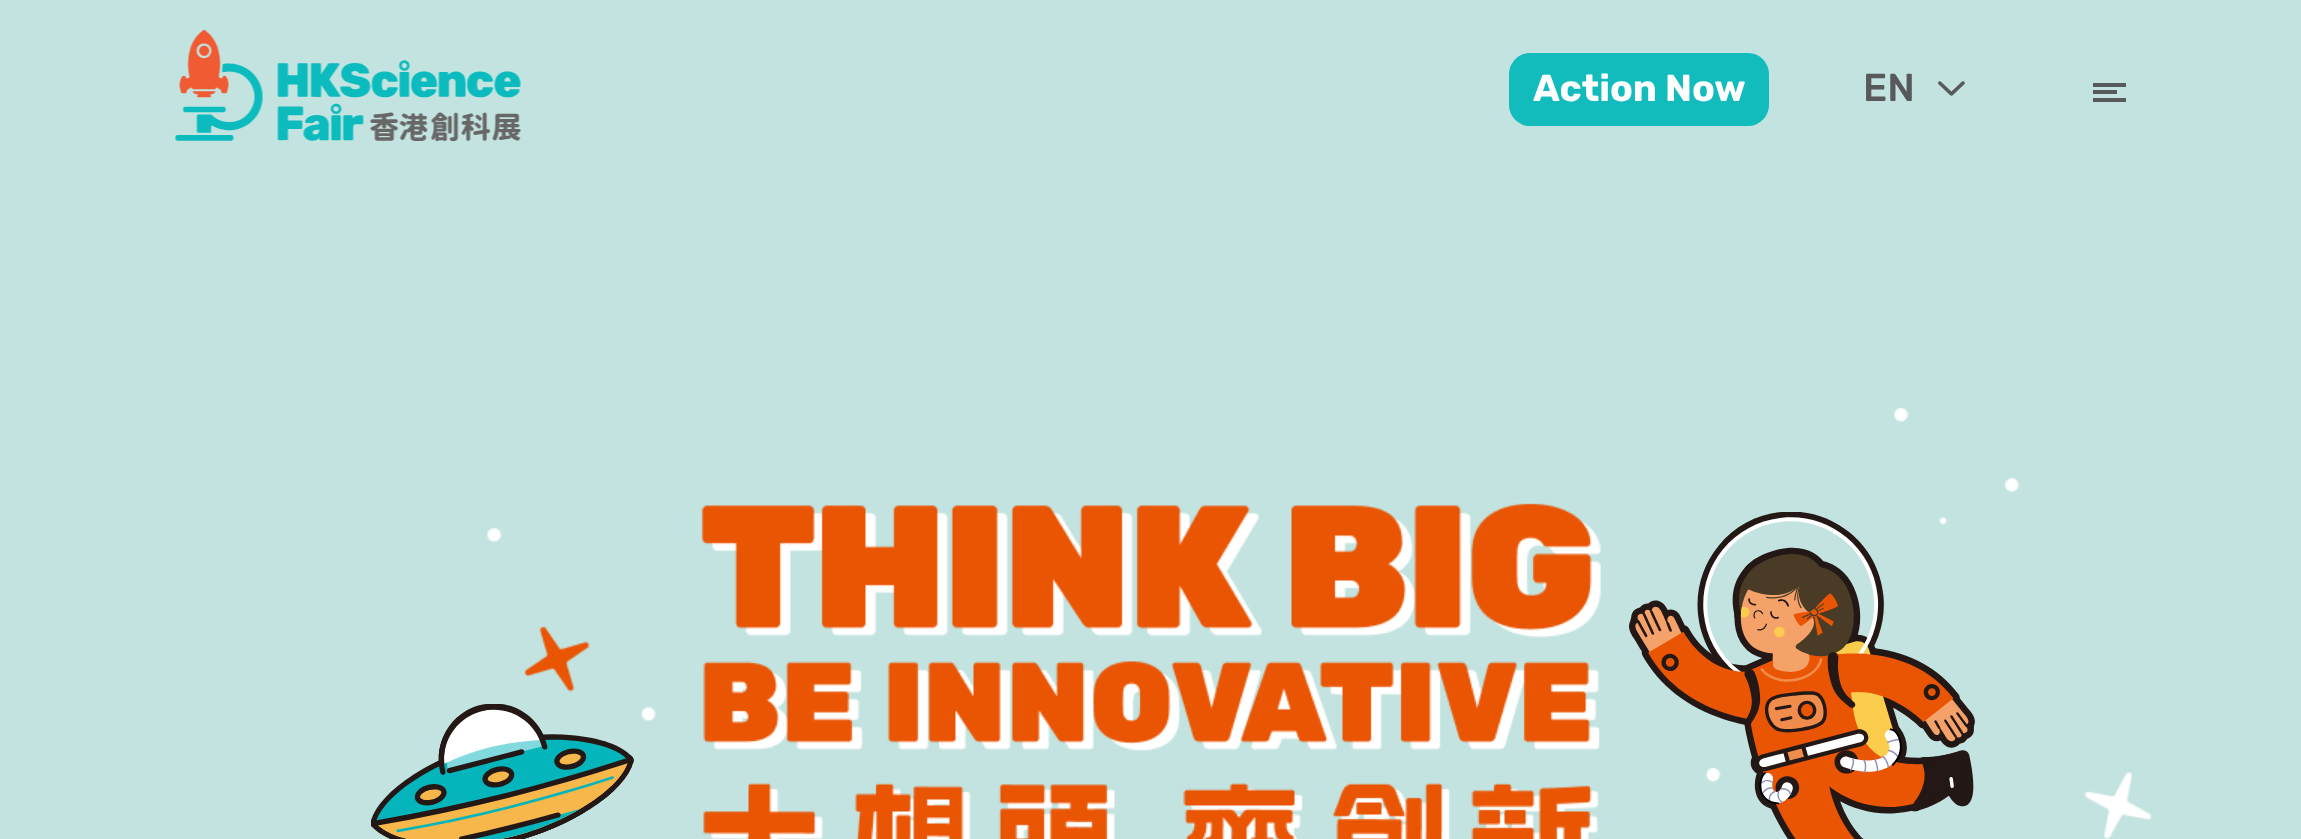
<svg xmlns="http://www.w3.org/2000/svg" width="2301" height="839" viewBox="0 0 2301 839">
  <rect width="100%" height="100%" fill="#fff"/>
  <path d="M0 0h2301v179H0z" fill="#c2e3df"/>
  <image x="175" y="30" width="346" height="112" href="img/1.png"/>
  <rect x="1509" y="53" width="260" height="73" rx="21" fill="#12bcbd"/>
  <image x="1938" y="81" width="27" height="15" href="img/2.png"/>
  <path d="M2093 83h33v4H2093z" fill="#58595b"/>
  <path d="M2093 90h24v4H2093z" fill="#58595b"/>
  <path d="M2093 98h33v4H2093z" fill="#58595b"/>
  <image x="0" y="179" width="2301" height="660" href="img/3.png"/>
  <image x="371" y="704" width="263" height="135" href="img/4.png"/>
  <image x="1629" y="512" width="346" height="327" href="img/5.png"/>
  <text x="1533" y="101" font-family="Rubik" font-size="37.5" font-weight="bold" fill="#fff">Action Now</text>
  <text x="1863" y="101" font-family="Rubik" font-size="39" font-weight="500" fill="#58595b">EN</text>
</svg>
